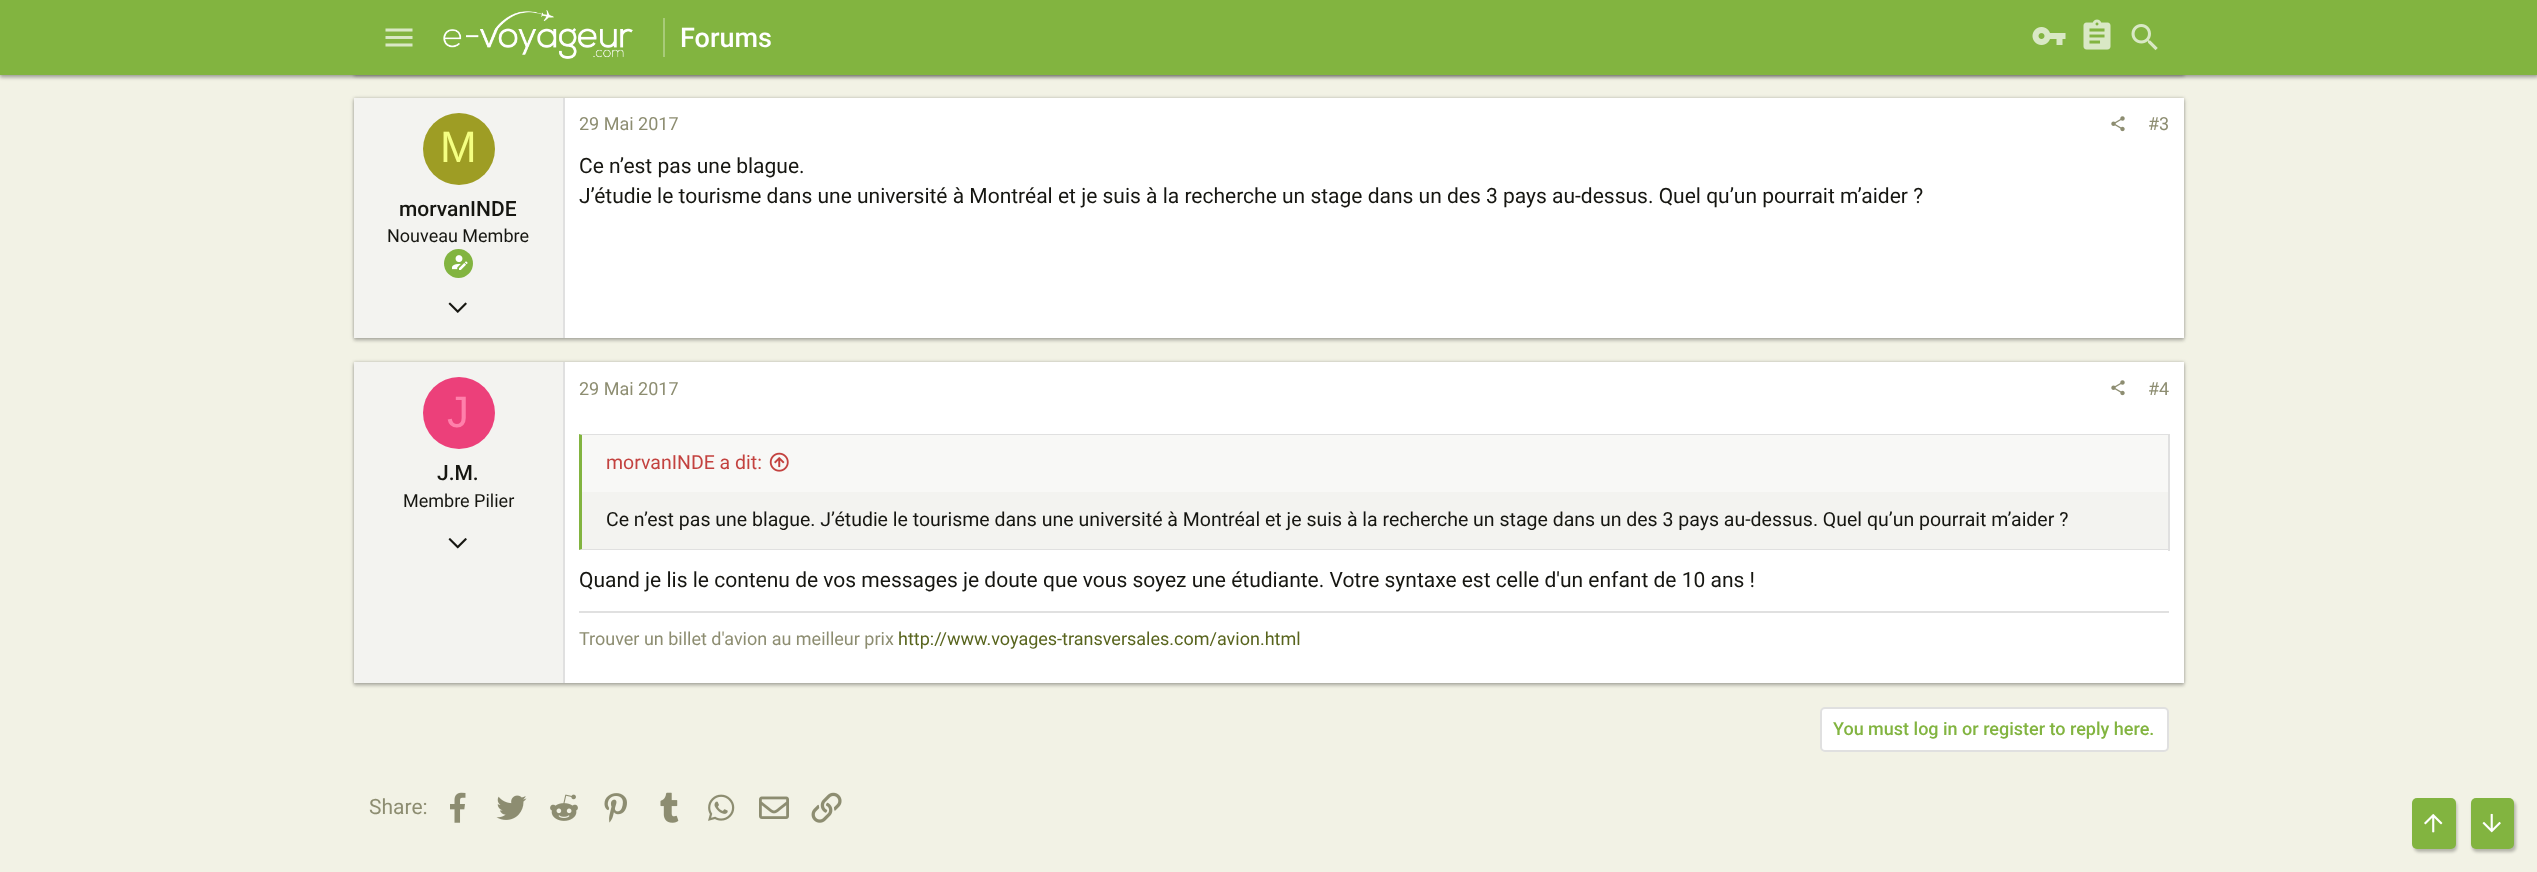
<svg xmlns="http://www.w3.org/2000/svg" width="2537" height="872" viewBox="0 0 2537 872">
  <rect width="100%" height="100%" fill="#f2f2e5"/>
  <path d="M0 2h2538v75H0z" fill="#00000033" filter="blur(2px)"/>
  <path d="M0 3h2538v75H0z" fill="#0000001f" filter="blur(1.5px)"/>
  <path d="M0 0h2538v75H0z" fill="#00000024" filter="blur(1.5px)"/>
  <path d="M354 -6h1830v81H354z" fill="#00000033" filter="blur(2px)"/>
  <path d="M354 -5h1830v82H354z" fill="#0000001f" filter="blur(1.5px)"/>
  <path d="M354 -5h1830v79H354z" fill="#00000024" filter="blur(1.5px)"/>
  <path d="M0 0h2537v75H0z" fill="#82b440"/>
  <image x="385" y="28" width="28" height="19" href="img/1.png"/>
  <image x="443" y="10" width="190" height="49" href="img/2.png"/>
  <path d="M663 18h2v39H663z" fill="#a8cb79"/>
  <image x="2032" y="27" width="34" height="18" href="img/3.png"/>
  <image x="2083" y="19" width="28" height="31" href="img/4.png"/>
  <image x="2131" y="24" width="27" height="27" href="img/5.png"/>
  <path d="M354 99h1830v240H354z" fill="#00000033" filter="blur(2px)"/>
  <path d="M354 101h1830v240H354z" fill="#0000001f" filter="blur(1.5px)"/>
  <path d="M354 98h1830v240H354z" fill="#00000024" filter="blur(1.5px)"/>
  <path d="M565 98h1619v240H565z" fill="#fff"/>
  <path d="M354 98h209v240H354z" fill="#f3f3f0"/>
  <path d="M563 98h2v240H563z" fill="#e0e0e0"/>
  <circle cx="459" cy="149" r="36" fill="#9e9d24"/>
  <circle cx="458.5" cy="263.5" r="14.5" fill="#82b440"/>
  <image x="452" y="255" width="16" height="15" href="img/6.png"/>
  <image x="448" y="302" width="19" height="11" href="img/7.png"/>
  <image x="2111" y="116" width="14" height="16" href="img/8.png"/>
  <path d="M354 363h1830v321H354z" fill="#00000033" filter="blur(2px)"/>
  <path d="M354 365h1830v321H354z" fill="#0000001f" filter="blur(1.5px)"/>
  <path d="M354 362h1830v321H354z" fill="#00000024" filter="blur(1.5px)"/>
  <path d="M565 362h1619v321H565z" fill="#fff"/>
  <path d="M354 362h209v321H354z" fill="#f3f3f0"/>
  <path d="M563 362h2v321H563z" fill="#e0e0e0"/>
  <circle cx="459" cy="413" r="36" fill="#ec407a"/>
  <image x="448" y="538" width="19" height="11" href="img/9.png"/>
  <image x="2111" y="380" width="14" height="16" href="img/8.png"/>
  <path d="M582 492h1586v57H582z" fill="#f3f3f0"/>
  <path d="M579 434H2169L2168 435H582Z" fill="#e0e0e0"/>
  <path d="M2168 434h2v117H2168z" fill="#e0e0e0"/>
  <path d="M2169 550H579L582 549H2168Z" fill="#e0e0e0"/>
  <path d="M579 550V434L582 435V549Z" fill="#82b440"/>
  <path d="M582 435h1586v57H582z" fill="#f8f8f6"/>
  <image x="769" y="452" width="20" height="20" href="img/10.png"/>
  <path d="M579 611h1590v2H579z" fill="#e0e0e0"/>
  <rect x="1821" y="708" width="347" height="43" rx="4" fill="#fff" stroke="#e0e0e0" stroke-width="2"/>
  <image x="450" y="792" width="16" height="31" href="img/11.png"/>
  <image x="496" y="795" width="31" height="25" href="img/12.png"/>
  <image x="550" y="794" width="28" height="27" href="img/13.png"/>
  <image x="604" y="793" width="23" height="30" href="img/14.png"/>
  <image x="660" y="792" width="19" height="31" href="img/15.png"/>
  <image x="708" y="794" width="27" height="27" href="img/16.png"/>
  <image x="759" y="796" width="30" height="23" href="img/17.png"/>
  <image x="811" y="792" width="31" height="31" href="img/18.png"/>
  <rect x="2414" y="801" width="43" height="51" rx="5" fill="#00000040" filter="blur(1.5px)"/>
  <rect x="2412" y="798" width="44" height="51" rx="5" fill="#82b440"/>
  <image x="2424" y="814" width="19" height="19" href="img/19.png"/>
  <rect x="2472" y="801" width="44" height="51" rx="5" fill="#00000040" filter="blur(1.5px)"/>
  <rect x="2471" y="798" width="43" height="51" rx="5" fill="#82b440"/>
  <image x="2482" y="813" width="19" height="20" href="img/20.png"/>
  <text x="680" y="47" font-family="Roboto" font-size="27" font-weight="500" fill="#fff">Forums</text>
  <text x="440" y="162" font-family="Liberation Sans" font-size="44" fill="#f4ff81">M</text>
  <text x="399" y="216" font-family="Roboto" font-size="21" font-weight="500" fill="#161611">morvanINDE</text>
  <text x="387" y="242" font-family="Roboto" font-size="18" fill="#161611">Nouveau Membre</text>
  <g font-family="Roboto" font-size="18" fill="#8d8d71">
    <text x="579" y="130">29 Mai 2017</text>
    <text x="2148" y="130">#3</text>
  </g>
  <g font-family="Roboto" font-size="21" fill="#161611">
    <text x="579" y="173">Ce n’est pas une blague.</text>
    <text x="579" y="203">J’étudie le tourisme dans une université à Montréal et je suis à la recherche un stage dans un des 3 pays au-dessus. Quel qu’un pourrait m’aider ?</text>
  </g>
  <text x="447" y="427" font-family="Liberation Sans" font-size="44" fill="#ff80ab">J</text>
  <text x="437" y="480" font-family="Roboto" font-size="21" font-weight="500" fill="#161611">J.M.</text>
  <text x="403" y="507" font-family="Roboto" font-size="18" fill="#161611">Membre Pilier</text>
  <g font-family="Roboto" font-size="18" fill="#8d8d71">
    <text x="579" y="395">29 Mai 2017</text>
    <text x="2148" y="395">#4</text>
  </g>
  <text x="606" y="469" font-family="Roboto" font-size="19.5" fill="#c3423f">morvanINDE a dit:</text>
  <text x="606" y="526" font-family="Roboto" font-size="19.5" fill="#161611">Ce n’est pas une blague. J’étudie le tourisme dans une université à Montréal et je suis à la recherche un stage dans un des 3 pays au-dessus. Quel qu’un pourrait m’aider ?</text>
  <text x="579" y="587" font-family="Roboto" font-size="21" fill="#161611">Quand je lis le contenu de vos messages je doute que vous soyez une étudiante. Votre syntaxe est celle d'un enfant de 10 ans !</text>
  <text x="579" y="645" font-family="Roboto" font-size="18" fill="#8d8d71">Trouver un billet d'avion au meilleur prix</text>
  <text x="898" y="645" font-family="Roboto" font-size="18" fill="#58641d">http://www.voyages-transversales.com/avion.html</text>
  <text x="1833" y="735" font-family="Roboto" font-size="18" font-weight="500" fill="#82b440">You must log in or register to reply here.</text>
  <text x="369" y="814" font-family="Roboto" font-size="21" fill="#8d8d71">Share:</text>
</svg>
